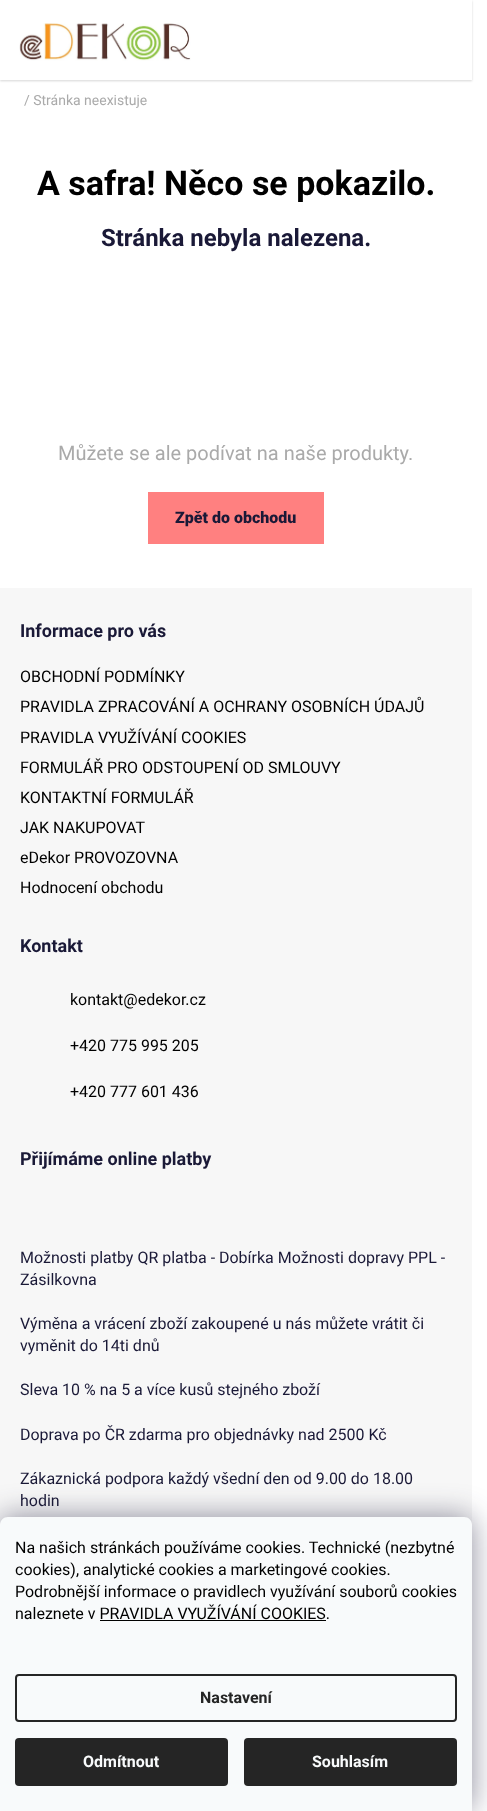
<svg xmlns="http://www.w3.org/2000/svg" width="487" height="1811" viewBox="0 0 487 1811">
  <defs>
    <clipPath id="clip1"><path d="M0 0H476V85H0ZM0 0H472V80H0Z" clip-rule="evenodd"/></clipPath>
  </defs>
  <rect width="100%" height="100%" fill="#fff"/>
  <g clip-path="url(#clip1)">
    <path d="M0 1h472v80H0z" fill="#00000029" filter="blur(1px)"/>
  </g>
  <image x="19" y="23" width="172" height="38" href="img/1.png"/>
  <path d="M148 492h176v52H148z" fill="#ff8080"/>
  <path d="M0 588h472v937H0z" fill="#f7f7f7"/>
  <rect y="1517" width="472" height="294" rx="8" fill="#1b193980" filter="blur(15px)"/>
  <path d="M8 1517H464C468.5 1517 472 1520.5 472 1525V1811H0V1525C0 1520.5 3.5 1517 8 1517Z" fill="#f8fafb"/>
  <path d="M100 1620h226v1H100z" fill="#000"/>
  <rect x="16" y="1675" width="440" height="46" rx="3" fill="none" stroke="#252525" stroke-width="2"/>
  <rect x="15" y="1738" width="213" height="48" rx="4" fill="#252525"/>
  <rect x="244" y="1738" width="213" height="48" rx="4" fill="#252525"/>
  <text x="24" y="105" font-family="Roboto" font-size="14" fill="#aaa">/ Stránka neexistuje</text>
  <text x="37" y="195" font-family="Roboto" font-size="34" font-weight="bold" fill="#000">A safra! Něco se pokazilo.</text>
  <text x="101" y="246" font-family="Roboto" font-size="24" font-weight="bold" fill="#1a1937">Stránka nebyla nalezena.</text>
  <text x="58" y="460" font-family="Roboto" font-size="20" fill="#aaa">Můžete se ale podívat na naše produkty.</text>
  <text x="175" y="523" font-family="Roboto" font-size="16" font-weight="900" fill="#1a1937">Zpět do obchodu</text>
  <text x="20" y="637" font-family="Roboto" font-size="18" font-weight="bold" fill="#1a1937">Informace pro vás</text>
  <g font-family="Roboto" font-size="16" fill="#000">
    <text x="20" y="682">OBCHODNÍ PODMÍNKY</text>
    <text x="20" y="712">PRAVIDLA ZPRACOVÁNÍ A OCHRANY OSOBNÍCH ÚDAJŮ</text>
    <text x="20" y="743">PRAVIDLA VYUŽÍVÁNÍ COOKIES</text>
    <text x="20" y="773">FORMULÁŘ PRO ODSTOUPENÍ OD SMLOUVY</text>
    <text x="20" y="803">KONTAKTNÍ FORMULÁŘ</text>
    <text x="20" y="833">JAK NAKUPOVAT</text>
    <text x="20" y="863">eDekor PROVOZOVNA</text>
    <text x="20" y="893">Hodnocení obchodu</text>
  </g>
  <text x="20" y="952" font-family="Roboto" font-size="18" font-weight="bold" fill="#1a1937">Kontakt</text>
  <g font-family="Roboto" font-size="16" fill="#000">
    <text x="70" y="1005">kontakt@edekor.cz</text>
    <text x="70" y="1051">+420 775 995 205</text>
    <text x="70" y="1097">+420 777 601 436</text>
  </g>
  <text x="20" y="1165" font-family="Roboto" font-size="18" font-weight="bold" fill="#1a1937">Přijímáme online platby</text>
  <g font-family="Roboto" font-size="16" fill="#1a1937">
    <text x="20" y="1263">Možnosti platby QR platba - Dobírka Možnosti dopravy PPL -</text>
    <text x="20" y="1285">Zásilkovna</text>
    <text x="20" y="1329">Výměna a vrácení zboží zakoupené u nás můžete vrátit či</text>
    <text x="20" y="1351">vyměnit do 14ti dnů</text>
    <text x="20" y="1395">Sleva 10 % na 5 a více kusů stejného zboží</text>
    <text x="20" y="1440">Doprava po ČR zdarma pro objednávky nad 2500 Kč</text>
    <text x="20" y="1484">Zákaznická podpora každý všední den od 9.00 do 18.00</text>
    <text x="20" y="1506">hodin</text>
  </g>
  <g font-family="Roboto" font-size="16" fill="#000">
    <text x="15" y="1553">Na našich stránkách používáme cookies. Technické (nezbytné</text>
    <text x="15" y="1575">cookies), analytické cookies a marketingové cookies.</text>
    <text x="15" y="1597">Podrobnější informace o pravidlech využívání souborů cookies</text>
    <text x="15" y="1619">naleznete v PRAVIDLA VYUŽÍVÁNÍ COOKIES.</text>
  </g>
  <text x="200" y="1703" font-family="Roboto" font-size="16" font-weight="bold" fill="#252525">Nastavení</text>
  <g font-family="Roboto" font-size="16" font-weight="bold" fill="#f8fafb">
    <text x="83" y="1767">Odmítnout</text>
    <text x="312" y="1767">Souhlasím</text>
  </g>
</svg>
